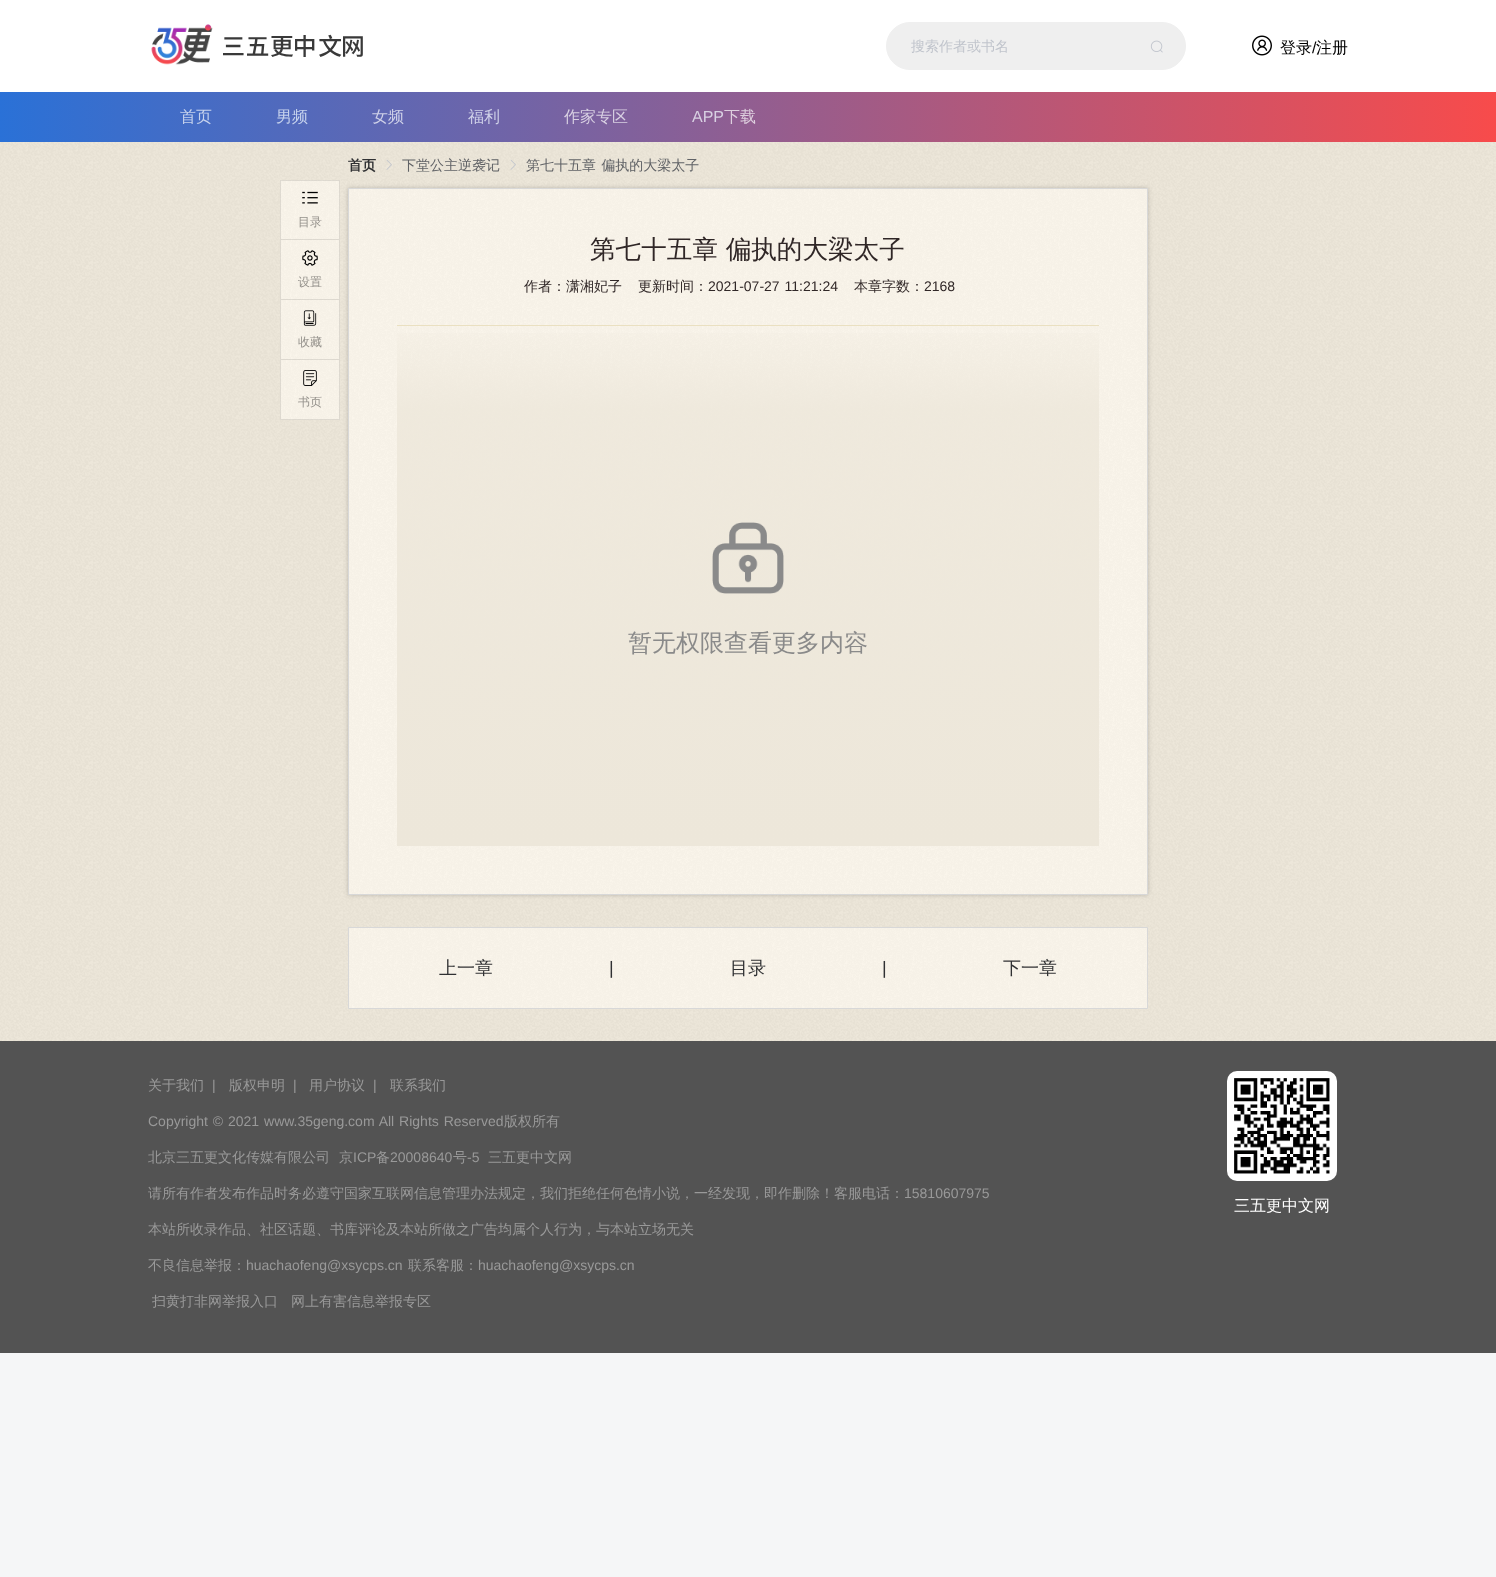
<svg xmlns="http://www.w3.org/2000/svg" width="1496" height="1577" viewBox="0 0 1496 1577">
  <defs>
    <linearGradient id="g1" gradientUnits="userSpaceOnUse" x1="0" y1="117" x2="1496" y2="117"><stop offset="0" stop-color="#2a71d7"/><stop offset="1" stop-color="#f84b4b"/></linearGradient>
    <linearGradient id="g2" gradientUnits="userSpaceOnUse" x1="748" y1="326" x2="748" y2="846"><stop offset="0" stop-color="#ede7da" stop-opacity="0.1"/><stop offset="0.16" stop-color="#ede7da" stop-opacity="0.8"/><stop offset="1" stop-color="#ede7da"/></linearGradient>
  </defs>
  <rect width="100%" height="100%" fill="#f5f6f7"/>
  <path d="M0 0h1496v92H0z" fill="#fff"/>
  <image x="151" y="24" width="62" height="41" href="img/1.png"/>
  <rect x="886.5" y="22.5" width="299" height="47" rx="23.5" fill="#efefef" stroke="#efefef"/>
  <image x="1150" y="40" width="13" height="13" href="img/2.png"/>
  <image x="1252" y="35" width="20" height="21" href="img/3.png"/>
  <path d="M0 92h1496v50H0z" fill="url(#g1)"/>
  <image x="0" y="142" width="1496" height="899" href="img/4.png"/>
  <image x="386" y="159" width="6" height="11" href="img/5.png"/>
  <image x="510" y="159" width="6" height="11" href="img/6.png"/>
  <image x="280" y="180" width="60" height="60" href="img/7.png"/>
  <path d="M280.5 180.5h59v59H280.5z" fill="none" stroke="#0000001a"/>
  <image x="302" y="191" width="16" height="13" href="img/8.png"/>
  <image x="280" y="240" width="60" height="60" href="img/9.png"/>
  <path d="M340 240V300L339 299V240Z" fill="#0000001a"/>
  <path d="M340 300H280L281 299H339Z" fill="#0000001a"/>
  <path d="M280 300V240H281V299Z" fill="#0000001a"/>
  <image x="302" y="250" width="16" height="16" href="img/10.png"/>
  <image x="280" y="300" width="60" height="60" href="img/9.png"/>
  <path d="M340 300V360L339 359V300Z" fill="#0000001a"/>
  <path d="M340 360H280L281 359H339Z" fill="#0000001a"/>
  <path d="M280 360V300H281V359Z" fill="#0000001a"/>
  <image x="303" y="310" width="14" height="16" href="img/11.png"/>
  <image x="280" y="360" width="60" height="60" href="img/9.png"/>
  <path d="M340 360V420L339 419V360Z" fill="#0000001a"/>
  <path d="M340 420H280L281 419H339Z" fill="#0000001a"/>
  <path d="M280 420V360H281V419Z" fill="#0000001a"/>
  <image x="303" y="370" width="14" height="16" href="img/12.png"/>
  <path d="M348 188h800v707H348z" fill="#00000033" filter="blur(2px)"/>
  <image x="349" y="189" width="798" height="705" href="img/13.png"/>
  <path d="M348.5 188.5h799v706H348.5z" fill="none" stroke="#d8d8d8"/>
  <path d="M397 325h702v1H397z" fill="#eae0c1"/>
  <image x="397" y="326" width="702" height="507" href="img/14.png"/>
  <path d="M397 333h702v513H397z" fill="url(#g2)"/>
  <image x="712" y="522" width="72" height="72" href="img/15.png"/>
  <image x="349" y="928" width="798" height="80" href="img/16.png"/>
  <path d="M348.5 927.5h799v81H348.5z" fill="none" stroke="#d8d8d8"/>
  <path d="M0 1041h1496v312H0z" fill="#535353"/>
  <rect x="1227" y="1071" width="110" height="110" rx="10" fill="#fff"/>
  <image x="1234" y="1078" width="96" height="96" href="img/17.png"/>
  <text x="223" y="55" font-family="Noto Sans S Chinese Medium" font-size="24" font-weight="500" fill="#393939">三五更中文网</text>
  <text x="911" y="51" font-family="WenQuanYi Zen Hei" font-size="14" font-weight="500" fill="#c0c4cc">搜索作者或书名</text>
  <text x="1280" y="53" font-family="WenQuanYi Zen Hei" font-size="16" font-weight="500" fill="#000">登录</text>
  <text x="1312" y="53" font-family="Liberation Sans" font-size="16" fill="#000">/</text>
  <text x="1316" y="53" font-family="WenQuanYi Zen Hei" font-size="16" font-weight="500" fill="#000">注册</text>
  <g font-family="WenQuanYi Zen Hei" font-size="16" font-weight="500" fill="#c7d3ed">
    <text x="180" y="122">首页</text>
    <text x="276" y="122">男频</text>
  </g>
  <g font-family="WenQuanYi Zen Hei" font-size="16" font-weight="500" fill="#cfd1e8">
    <text x="372" y="122">女频</text>
    <text x="468" y="122">福利</text>
  </g>
  <text x="564" y="122" font-family="WenQuanYi Zen Hei" font-size="16" font-weight="500" fill="#d8d0e2">作家专区</text>
  <text x="692" y="122" font-family="Liberation Sans" font-size="16" fill="#d8d0e2">APP</text>
  <text x="724" y="122" font-family="WenQuanYi Zen Hei" font-size="16" font-weight="500" fill="#decfde">下载</text>
  <text x="348" y="170" font-family="WenQuanYi Zen Hei" font-size="14" font-weight="bold" fill="#303133">首页</text>
  <g font-family="WenQuanYi Zen Hei" font-size="14" font-weight="500" fill="#606266">
    <text x="402" y="170">下堂公主逆袭记</text>
    <text x="526" y="170" word-spacing="1">第七十五章 偏执的大梁太子</text>
  </g>
  <g font-family="WenQuanYi Zen Hei" font-size="12" font-weight="500" fill="#94918b">
    <text x="298" y="226">目录</text>
    <text x="298" y="286">设置</text>
    <text x="298" y="346">收藏</text>
    <text x="298" y="406">书页</text>
  </g>
  <text x="590" y="258" font-family="WenQuanYi Zen Hei" font-size="25.6" font-weight="500" fill="#302727">第七十五章 偏执的大梁太子</text>
  <g font-family="WenQuanYi Zen Hei" font-size="14" font-weight="500" fill="#302727">
    <text x="524" y="291">作者：潇湘妃子</text>
    <text x="638" y="291">更新时间：</text>
  </g>
  <text x="708" y="291" word-spacing="1" font-family="Liberation Sans" font-size="14" fill="#302727">2021-07-27 11:21:24</text>
  <text x="854" y="291" font-family="WenQuanYi Zen Hei" font-size="14" font-weight="500" fill="#302727">本章字数：</text>
  <text x="924" y="291" font-family="Liberation Sans" font-size="14" fill="#302727">2168</text>
  <text x="628" y="651" font-family="WenQuanYi Zen Hei" font-size="24" font-weight="500" fill="#8a8a8a">暂无权限查看更多内容</text>
  <text x="439" y="974" font-family="WenQuanYi Zen Hei" font-size="18" font-weight="500" fill="#303133">上一章</text>
  <text x="609" y="974" font-family="Liberation Sans" font-size="18" fill="#303133">|</text>
  <text x="730" y="974" font-family="WenQuanYi Zen Hei" font-size="18" font-weight="500" fill="#303133">目录</text>
  <text x="882" y="974" font-family="Liberation Sans" font-size="18" fill="#303133">|</text>
  <text x="1003" y="974" font-family="WenQuanYi Zen Hei" font-size="18" font-weight="500" fill="#303133">下一章</text>
  <text x="148" y="1090" font-family="WenQuanYi Zen Hei" font-size="14" font-weight="500" fill="#999">关于我们</text>
  <text x="212" y="1090" font-family="Liberation Sans" font-size="14" fill="#999">|</text>
  <text x="229" y="1090" font-family="WenQuanYi Zen Hei" font-size="14" font-weight="500" fill="#999">版权申明</text>
  <text x="293" y="1090" font-family="Liberation Sans" font-size="14" fill="#999">|</text>
  <text x="309" y="1090" font-family="WenQuanYi Zen Hei" font-size="14" font-weight="500" fill="#999">用户协议</text>
  <text x="373" y="1090" font-family="Liberation Sans" font-size="14" fill="#999">|</text>
  <text x="390" y="1090" font-family="WenQuanYi Zen Hei" font-size="14" font-weight="500" fill="#999">联系我们</text>
  <text x="148" y="1126" word-spacing="1" font-family="Liberation Sans" font-size="14" fill="#999">Copyright © 2021 www.35geng.com All Rights Reserved</text>
  <g font-family="WenQuanYi Zen Hei" font-size="14" font-weight="500" fill="#999">
    <text x="504" y="1126">版权所有</text>
    <text x="148" y="1162">北京三五更文化传媒有限公司</text>
    <text x="339" y="1162">京</text>
  </g>
  <text x="353" y="1162" font-family="Liberation Sans" font-size="14" fill="#999">ICP</text>
  <text x="376" y="1162" font-family="WenQuanYi Zen Hei" font-size="14" font-weight="500" fill="#999">备</text>
  <text x="390" y="1162" font-family="Liberation Sans" font-size="14" fill="#999">20008640</text>
  <text x="453" y="1162" font-family="WenQuanYi Zen Hei" font-size="14" font-weight="500" fill="#999">号</text>
  <text x="467" y="1162" font-family="Liberation Sans" font-size="14" fill="#999">-5</text>
  <g font-family="WenQuanYi Zen Hei" font-size="14" font-weight="500" fill="#999">
    <text x="488" y="1162">三五更中文网</text>
    <text x="148" y="1198">请所有作者发布作品时务必遵守国家互联网信息管理办法规定，我们拒绝任何色情小说，一经发现，即作删除！客服电话：</text>
  </g>
  <text x="904" y="1198" font-family="Liberation Sans" font-size="14" fill="#999">15810607975</text>
  <g font-family="WenQuanYi Zen Hei" font-size="14" font-weight="500" fill="#999">
    <text x="148" y="1234">本站所收录作品、社区话题、书库评论及本站所做之广告均属个人行为，与本站立场无关</text>
    <text x="148" y="1270">不良信息举报：</text>
  </g>
  <text x="246" y="1270" font-family="Liberation Sans" font-size="14" fill="#999">huachaofeng@xsycps.cn</text>
  <text x="408" y="1270" font-family="WenQuanYi Zen Hei" font-size="14" font-weight="500" fill="#999">联系客服：</text>
  <text x="478" y="1270" font-family="Liberation Sans" font-size="14" fill="#999">huachaofeng@xsycps.cn</text>
  <g font-family="WenQuanYi Zen Hei" font-size="14" font-weight="500" fill="#999">
    <text x="152" y="1306">扫黄打非网举报入口</text>
    <text x="291" y="1306">网上有害信息举报专区</text>
  </g>
  <text x="1234" y="1211" font-family="WenQuanYi Zen Hei" font-size="16" font-weight="500" fill="#fff">三五更中文网</text>
</svg>
